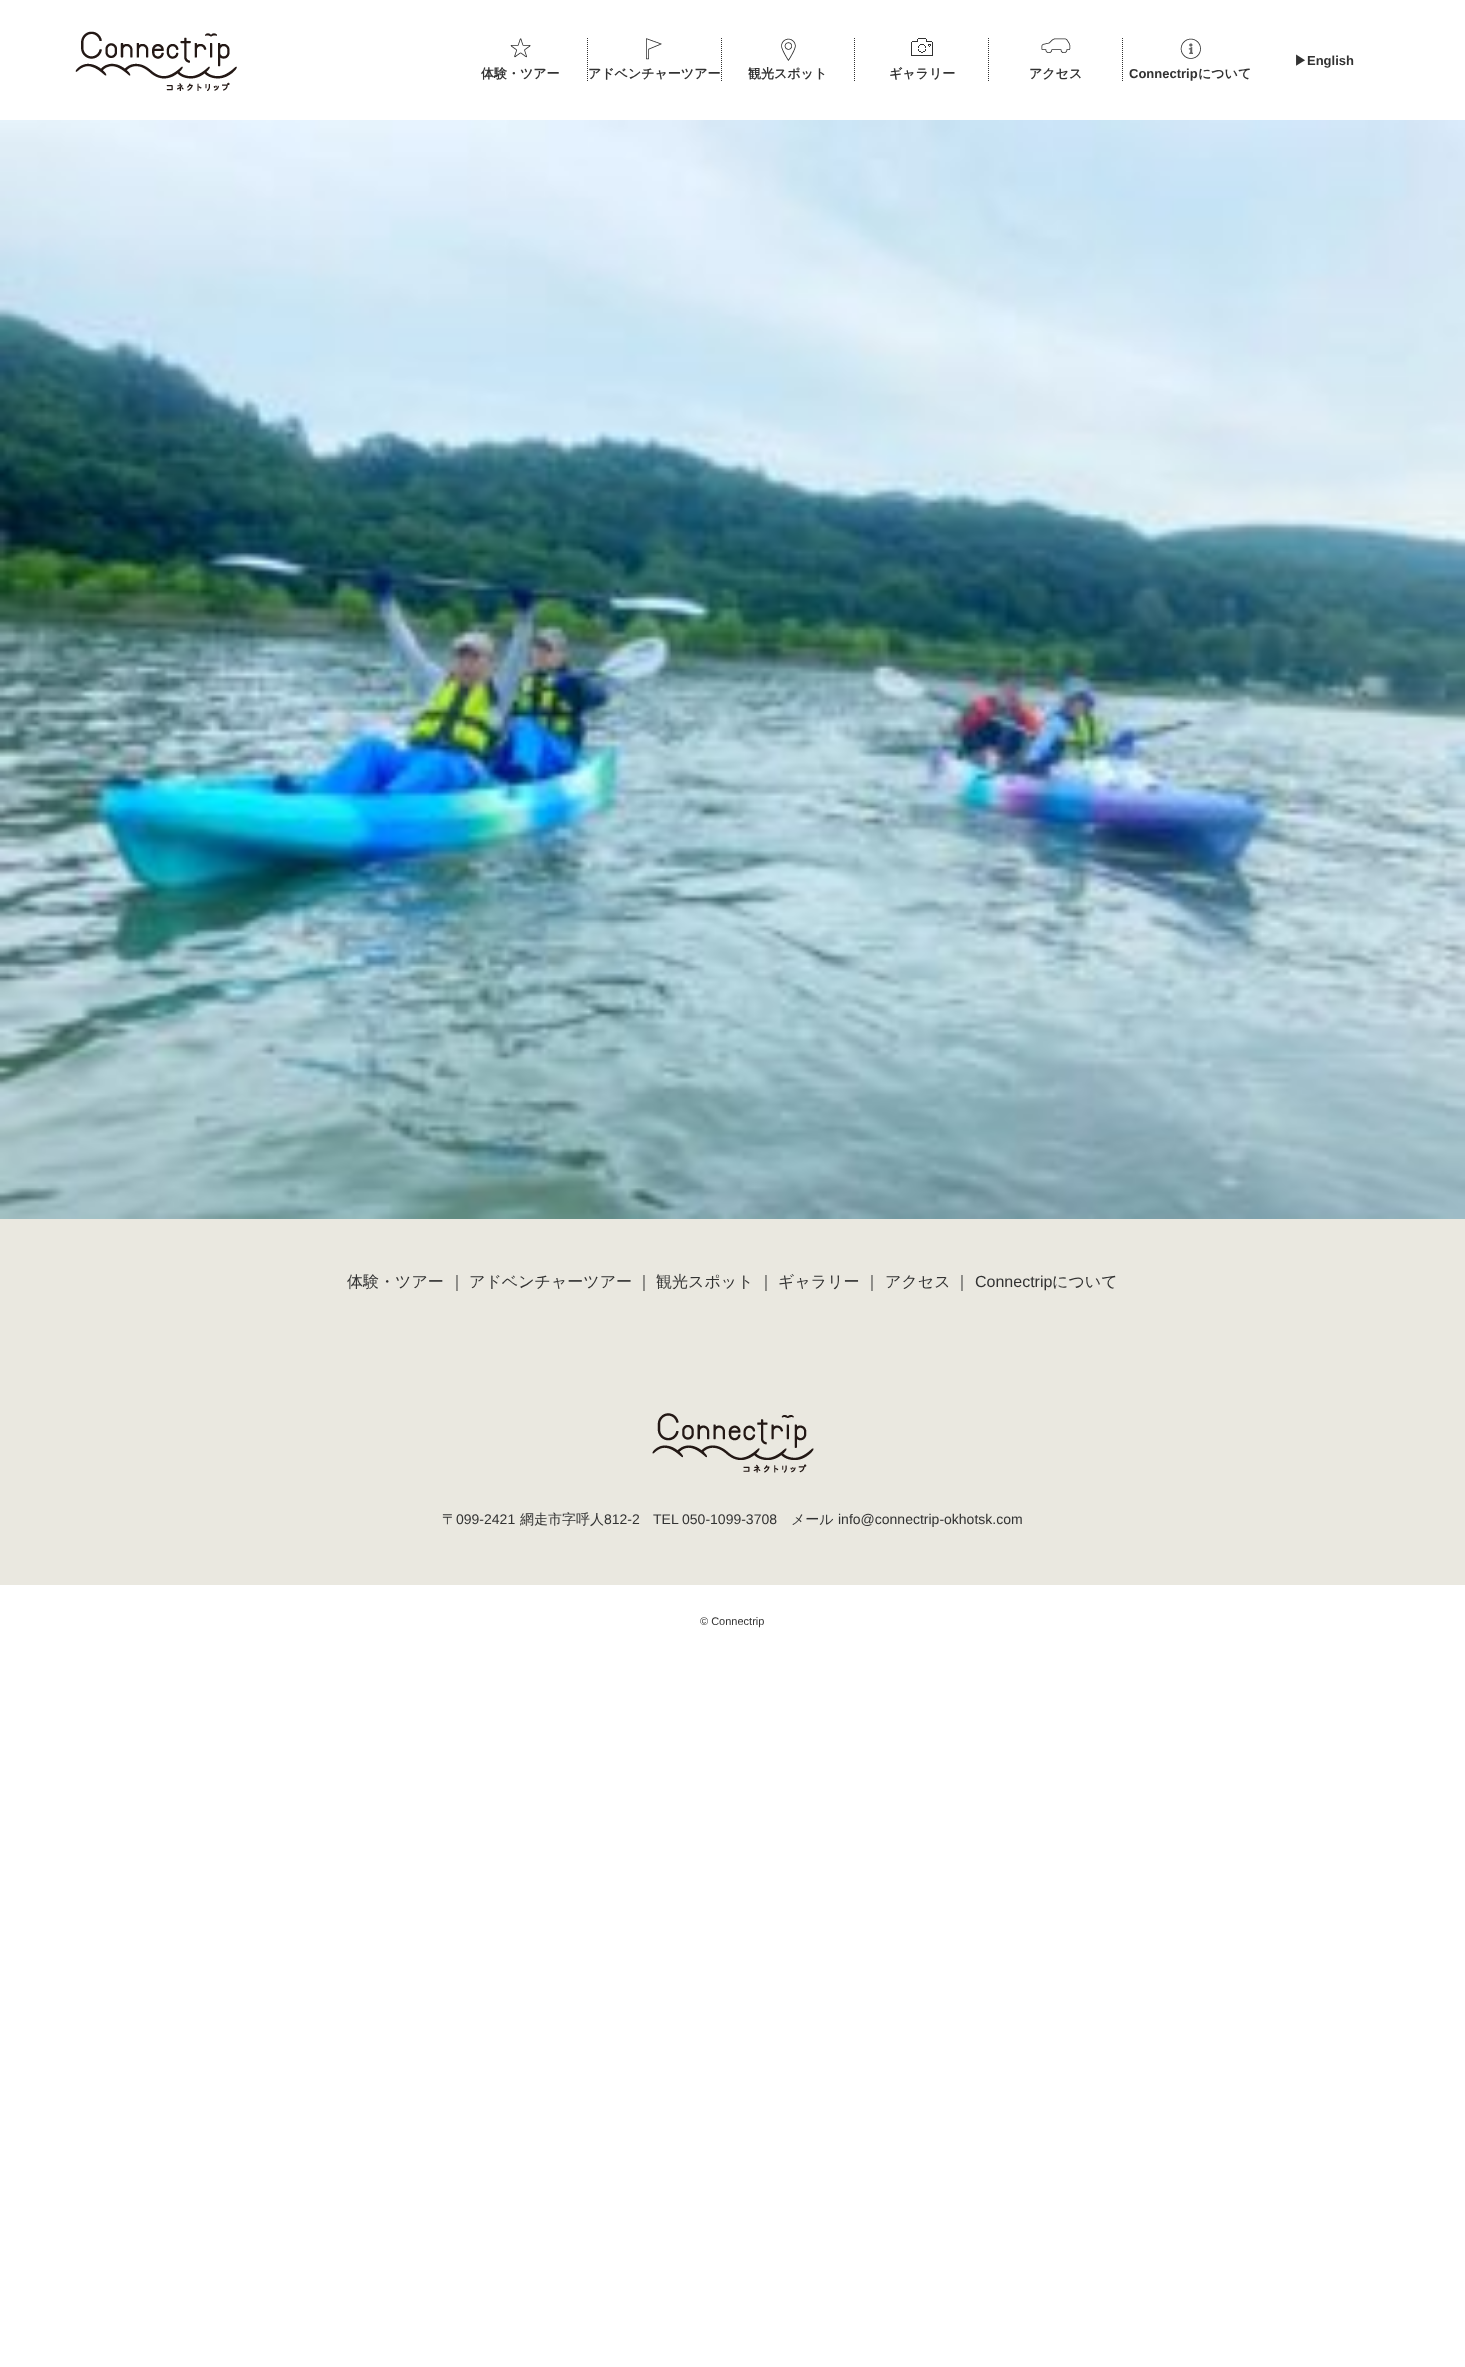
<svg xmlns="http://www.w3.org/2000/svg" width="1465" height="2367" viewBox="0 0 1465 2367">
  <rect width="100%" height="100%" fill="#fff"/>
  <image x="75" y="31" width="162" height="60" href="img/1.png"/>
  <path d="M587.5 38V82" fill="none" stroke="#323232" stroke-dasharray="1 1"/>
  <image x="510" y="38" width="21" height="20" href="img/2.png"/>
  <path d="M721.5 38V82" fill="none" stroke="#323232" stroke-dasharray="1 1"/>
  <image x="646" y="38" width="16" height="22" href="img/3.png"/>
  <path d="M854.5 38V82" fill="none" stroke="#323232" stroke-dasharray="1 1"/>
  <image x="781" y="38" width="15" height="23" href="img/4.png"/>
  <path d="M988.5 38V82" fill="none" stroke="#323232" stroke-dasharray="1 1"/>
  <image x="911" y="38" width="22" height="18" href="img/5.png"/>
  <path d="M1122.5 38V82" fill="none" stroke="#323232" stroke-dasharray="1 1"/>
  <image x="1041" y="38" width="30" height="15" href="img/6.png"/>
  <image x="1180" y="38" width="21" height="21" href="img/7.png"/>
  <image x="0" y="120" width="1465" height="1099" href="img/8.png"/>
  <path d="M0 1219h1465v366H0z" fill="#eae8e0"/>
  <image x="652" y="1413" width="162" height="60" href="img/9.png"/>
  <text x="1294" y="65" font-family="WenQuanYi Zen Hei" font-size="13" font-weight="bold" fill="#323232">▶︎</text>
  <text x="1307" y="65" font-family="Liberation Sans" font-size="13" font-weight="bold" fill="#323232">English</text>
  <g font-family="WenQuanYi Zen Hei" font-size="13" font-weight="bold" fill="#323232">
    <text x="481" y="78">体験・ツアー</text>
    <text x="588" y="78">アドベンチャーツアー</text>
    <text x="748" y="78">観光スポット</text>
    <text x="889" y="78">ギャラリー</text>
    <text x="1029" y="78">アクセス</text>
  </g>
  <text x="1129" y="78" font-family="Liberation Sans" font-size="13" font-weight="bold" fill="#323232">Connectrip</text>
  <text x="1198" y="78" font-family="WenQuanYi Zen Hei" font-size="13" font-weight="bold" fill="#323232">について</text>
  <g font-family="WenQuanYi Zen Hei" font-size="16" font-weight="500" fill="#323232">
    <text x="347" y="1287">体験・ツアー</text>
    <text x="449" y="1287">｜</text>
    <text x="469" y="1287">アドベンチャーツアー</text>
    <text x="636" y="1287">｜</text>
    <text x="656" y="1287">観光スポット</text>
    <text x="758" y="1287">｜</text>
    <text x="778" y="1287">ギャラリー</text>
    <text x="864" y="1287">｜</text>
    <text x="885" y="1287">アクセス</text>
    <text x="954" y="1287">｜</text>
  </g>
  <text x="975" y="1287" font-family="Liberation Sans" font-size="16" fill="#323232">Connectrip</text>
  <text x="1052" y="1287" font-family="WenQuanYi Zen Hei" font-size="16" font-weight="500" fill="#323232">について</text>
  <text x="442" y="1524" font-family="WenQuanYi Zen Hei" font-size="14" font-weight="500" fill="#323232">〒</text>
  <text x="456" y="1524" font-family="Liberation Sans" font-size="14" fill="#323232">099-2421</text>
  <text x="520" y="1524" font-family="WenQuanYi Zen Hei" font-size="14" font-weight="500" fill="#323232">網走市字呼人</text>
  <g font-family="Liberation Sans" font-size="14" fill="#323232">
    <text x="604" y="1524">812-2</text>
    <text x="653" y="1524">TEL 050-1099-3708</text>
  </g>
  <text x="791" y="1524" font-family="WenQuanYi Zen Hei" font-size="14" font-weight="500" fill="#323232">メール</text>
  <text x="838" y="1524" font-family="Liberation Sans" font-size="14" fill="#323232">info@connectrip-okhotsk.com</text>
  <text x="700" y="1625" font-family="Liberation Sans" font-size="11" fill="#323232">© Connectrip</text>
</svg>
